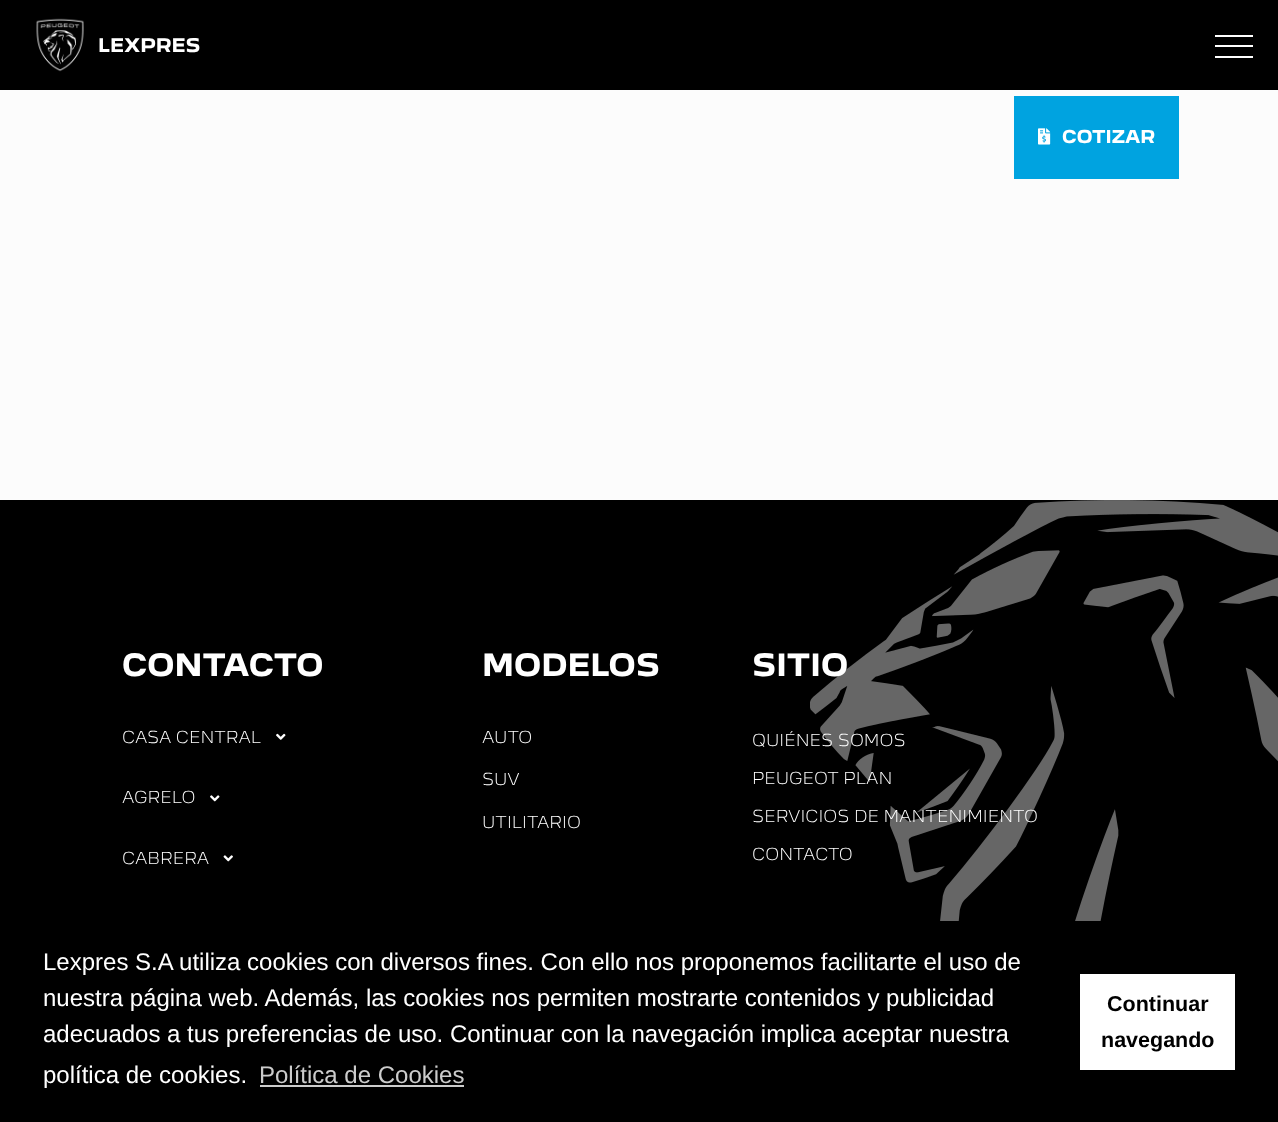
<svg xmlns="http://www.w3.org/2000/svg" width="1278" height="1122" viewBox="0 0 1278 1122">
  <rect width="100%" height="100%" fill="#fcfcfc"/>
  <path d="M0 0h1278v90H0z" fill="#000"/>
  <image x="36" y="18" width="48" height="54" href="img/1.png"/>
  <path d="M1215 35h38v2H1215z" fill="#fff"/>
  <path d="M1215 45h38v2H1215z" fill="#fff"/>
  <path d="M1215 56h38v2H1215z" fill="#fff"/>
  <path d="M1014 96h165v83H1014z" fill="#00a3e0"/>
  <image x="1038" y="128" width="13" height="17" href="img/2.png"/>
  <path d="M0 500h1278v622H0z" fill="#000"/>
  <image x="276" y="733" width="10" height="7" href="img/3.png"/>
  <image x="210" y="795" width="10" height="7" href="img/4.png"/>
  <image x="223" y="855" width="10" height="7" href="img/5.png"/>
  <path d="M260 1085h204v2H260z" fill="#ccc"/>
  <path d="M1080 974h155v96H1080z" fill="#fff"/>
  <text x="98" y="52" font-family="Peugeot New" font-size="17.25" font-weight="bold" fill="#fff">LEXPRES</text>
  <text x="1062" y="143" font-family="Peugeot New" font-size="16.25" font-weight="bold" fill="#fff">COTIZAR</text>
  <text x="122" y="676" font-family="Peugeot New" font-size="28" font-weight="bold" fill="#fff">CONTACTO</text>
  <g font-family="Peugeot New" font-size="15.1" font-weight="300" fill="#fff">
    <text x="122" y="743">CASA CENTRAL</text>
    <text x="122" y="803">AGRELO</text>
    <text x="122" y="864">CABRERA</text>
  </g>
  <text x="482" y="676" font-family="Peugeot New" font-size="28" font-weight="bold" fill="#fff">MODELOS</text>
  <g font-family="Peugeot New" font-size="15.1" font-weight="300" fill="#fff">
    <text x="482" y="743">AUTO</text>
    <text x="482" y="785">SUV</text>
    <text x="482" y="828">UTILITARIO</text>
  </g>
  <text x="752" y="676" font-family="Peugeot New" font-size="28" font-weight="bold" fill="#fff">SITIO</text>
  <g font-family="Peugeot New" font-size="15.1" font-weight="300" fill="#fff">
    <text x="752" y="746">QUIÉNES SOMOS</text>
    <text x="752" y="784">PEUGEOT PLAN</text>
    <text x="752" y="822">SERVICIOS DE MANTENIMIENTO</text>
    <text x="752" y="860">CONTACTO</text>
  </g>
  <image x="810" y="500" width="468" height="421" href="img/6.png"/>
  <g font-family="Liberation Sans" font-size="24" fill="#fff">
    <text x="43" y="970">Lexpres S.A utiliza cookies con diversos fines. Con ello nos proponemos facilitarte el uso de</text>
    <text x="43" y="1006">nuestra página web. Además, las cookies nos permiten mostrarte contenidos y publicidad</text>
    <text x="43" y="1042">adecuados a tus preferencias de uso. Continuar con la navegación implica aceptar nuestra</text>
    <text x="43" y="1083">política de cookies.</text>
  </g>
  <text x="259" y="1083" font-family="Liberation Sans" font-size="24" fill="#ccc">Política de Cookies</text>
  <g font-family="Liberation Sans" font-size="21.5" font-weight="bold" fill="#000">
    <text x="1107" y="1011">Continuar</text>
    <text x="1101" y="1047">navegando</text>
  </g>
</svg>
